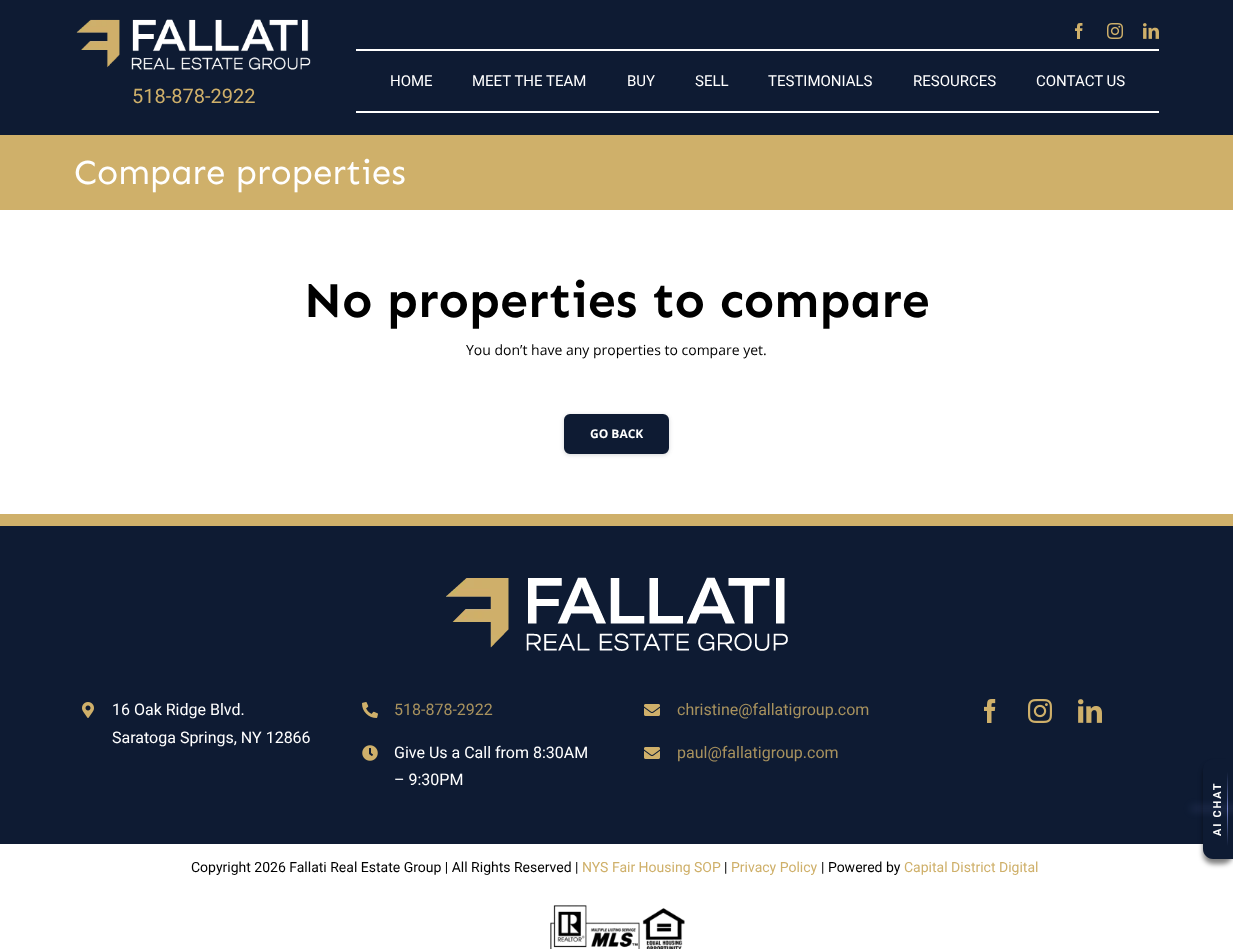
<svg xmlns="http://www.w3.org/2000/svg" width="1233" height="949" viewBox="0 0 1233 949">
  <defs>
    <linearGradient id="g1" gradientUnits="userSpaceOnUse" x1="1228" y1="846" x2="1228" y2="772"><stop offset="0" stop-color="#7988d5" stop-opacity="0"/><stop offset="0.5" stop-color="#7988d5" stop-opacity="0.9"/><stop offset="1" stop-color="#7988d5" stop-opacity="0"/></linearGradient>
  </defs>
  <rect width="100%" height="100%" fill="#fff"/>
  <path d="M0 0h1233v135H0z" fill="#0e1b33"/>
  <image x="1075" y="23" width="8" height="16" href="img/1.png"/>
  <image x="1107" y="23" width="16" height="16" href="img/2.png"/>
  <image x="1143" y="23" width="16" height="16" href="img/3.png"/>
  <path d="M356 49h803v2H356z" fill="#fff"/>
  <path d="M356 111h803v2H356z" fill="#fff"/>
  <image x="76" y="19" width="235" height="51" href="img/4.png"/>
  <path d="M0 135h1233v75H0z" fill="#cfb06a"/>
  <rect x="564" y="415" width="105" height="40" rx="6" fill="#26323833" filter="blur(2px)"/>
  <rect x="565" y="415" width="103" height="38" rx="5" fill="#0e1b33" stroke="#0e1b33" stroke-width="2"/>
  <path d="M0 526h1233v318H0z" fill="#0e1b33"/>
  <path d="M0 514h1233v12H0z" fill="#cfb06a"/>
  <image x="446" y="577" width="342" height="74" href="img/5.png"/>
  <image x="82" y="702" width="12" height="16" href="img/6.png"/>
  <image x="362" y="702" width="16" height="16" href="img/7.png"/>
  <image x="362" y="745" width="16" height="16" href="img/8.png"/>
  <image x="644" y="704" width="16" height="12" href="img/9.png"/>
  <image x="644" y="747" width="16" height="12" href="img/9.png"/>
  <image x="984" y="699" width="12" height="24" href="img/10.png"/>
  <image x="1028" y="699" width="24" height="24" href="img/11.png"/>
  <image x="1078" y="699" width="24" height="24" href="img/12.png"/>
  <image x="550" y="905" width="135" height="44" href="img/13.png"/>
  <rect x="1203" y="764" width="30" height="100" rx="10" fill="#00000080" filter="blur(2.5px)"/>
  <path d="M1213 759H1233V859H1213C1207.5 859 1203 854.5 1203 849V769C1203 763.5 1207.5 759 1213 759Z" fill="#0e1b33"/>
  <path d="M1191 808h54v1H1191z" fill="#94a3fdb8" filter="blur(4px)"/>
  <path d="M1227 772h1v74H1227z" fill="url(#g1)"/>
  <g font-family="Roboto" font-size="15" fill="#fff">
    <text x="390" y="86">HOME</text>
    <text x="472" y="86">MEET THE TEAM</text>
    <text x="627" y="86">BUY</text>
    <text x="695" y="86">SELL</text>
    <text x="768" y="86">TESTIMONIALS</text>
    <text x="913" y="86">RESOURCES</text>
    <text x="1036" y="86">CONTACT US</text>
  </g>
  <text x="132" y="103" font-family="Roboto" font-size="20" fill="#cfb06a">518-878-2922</text>
  <text x="74" y="184" font-family="Sen" font-size="35" fill="#fff">Compare properties</text>
  <text x="304" y="317" font-family="Sen" font-size="50" font-weight="bold" fill="#000">No properties to compare</text>
  <text x="466" y="355" font-family="Open Sans" font-size="14" fill="#000">You don’t have any properties to compare yet.</text>
  <text x="590" y="438" font-family="Open Sans" font-size="12" font-weight="bold" fill="#fff">GO BACK</text>
  <g font-family="Roboto" font-size="16" fill="#fff">
    <text x="112" y="715">16 Oak Ridge Blvd.</text>
    <text x="112" y="743">Saratoga Springs, NY 12866</text>
  </g>
  <text x="394" y="715" font-family="Roboto" font-size="16" fill="#a8925e">518-878-2922</text>
  <g font-family="Roboto" font-size="16" fill="#fff">
    <text x="394" y="758">Give Us a Call from 8:30AM</text>
    <text x="394" y="785">– 9:30PM</text>
  </g>
  <g font-family="Roboto" font-size="16" fill="#a8925e">
    <text x="677" y="715">christine@fallatigroup.com</text>
    <text x="677" y="758">paul@fallatigroup.com</text>
  </g>
  <text x="191" y="872" font-family="Roboto" font-size="14" fill="#000">Copyright 2026 Fallati Real Estate Group | All Rights Reserved |</text>
  <text x="582" y="872" font-family="Roboto" font-size="14" fill="#cfb06a">NYS Fair Housing SOP</text>
  <text x="724" y="872" font-family="Roboto" font-size="14" fill="#000">|</text>
  <text x="731" y="872" font-family="Roboto" font-size="14" fill="#cfb06a">Privacy Policy</text>
  <text x="821" y="872" font-family="Roboto" font-size="14" fill="#000">| Powered by</text>
  <text x="904" y="872" font-family="Roboto" font-size="14" fill="#cfb06a">Capital District Digital</text>
  <text x="1221" y="836" transform="rotate(-90 1221 836)" font-family="Roboto" font-size="11" font-weight="bold" letter-spacing="1.75" fill="#fff">AI CHAT</text>
</svg>
